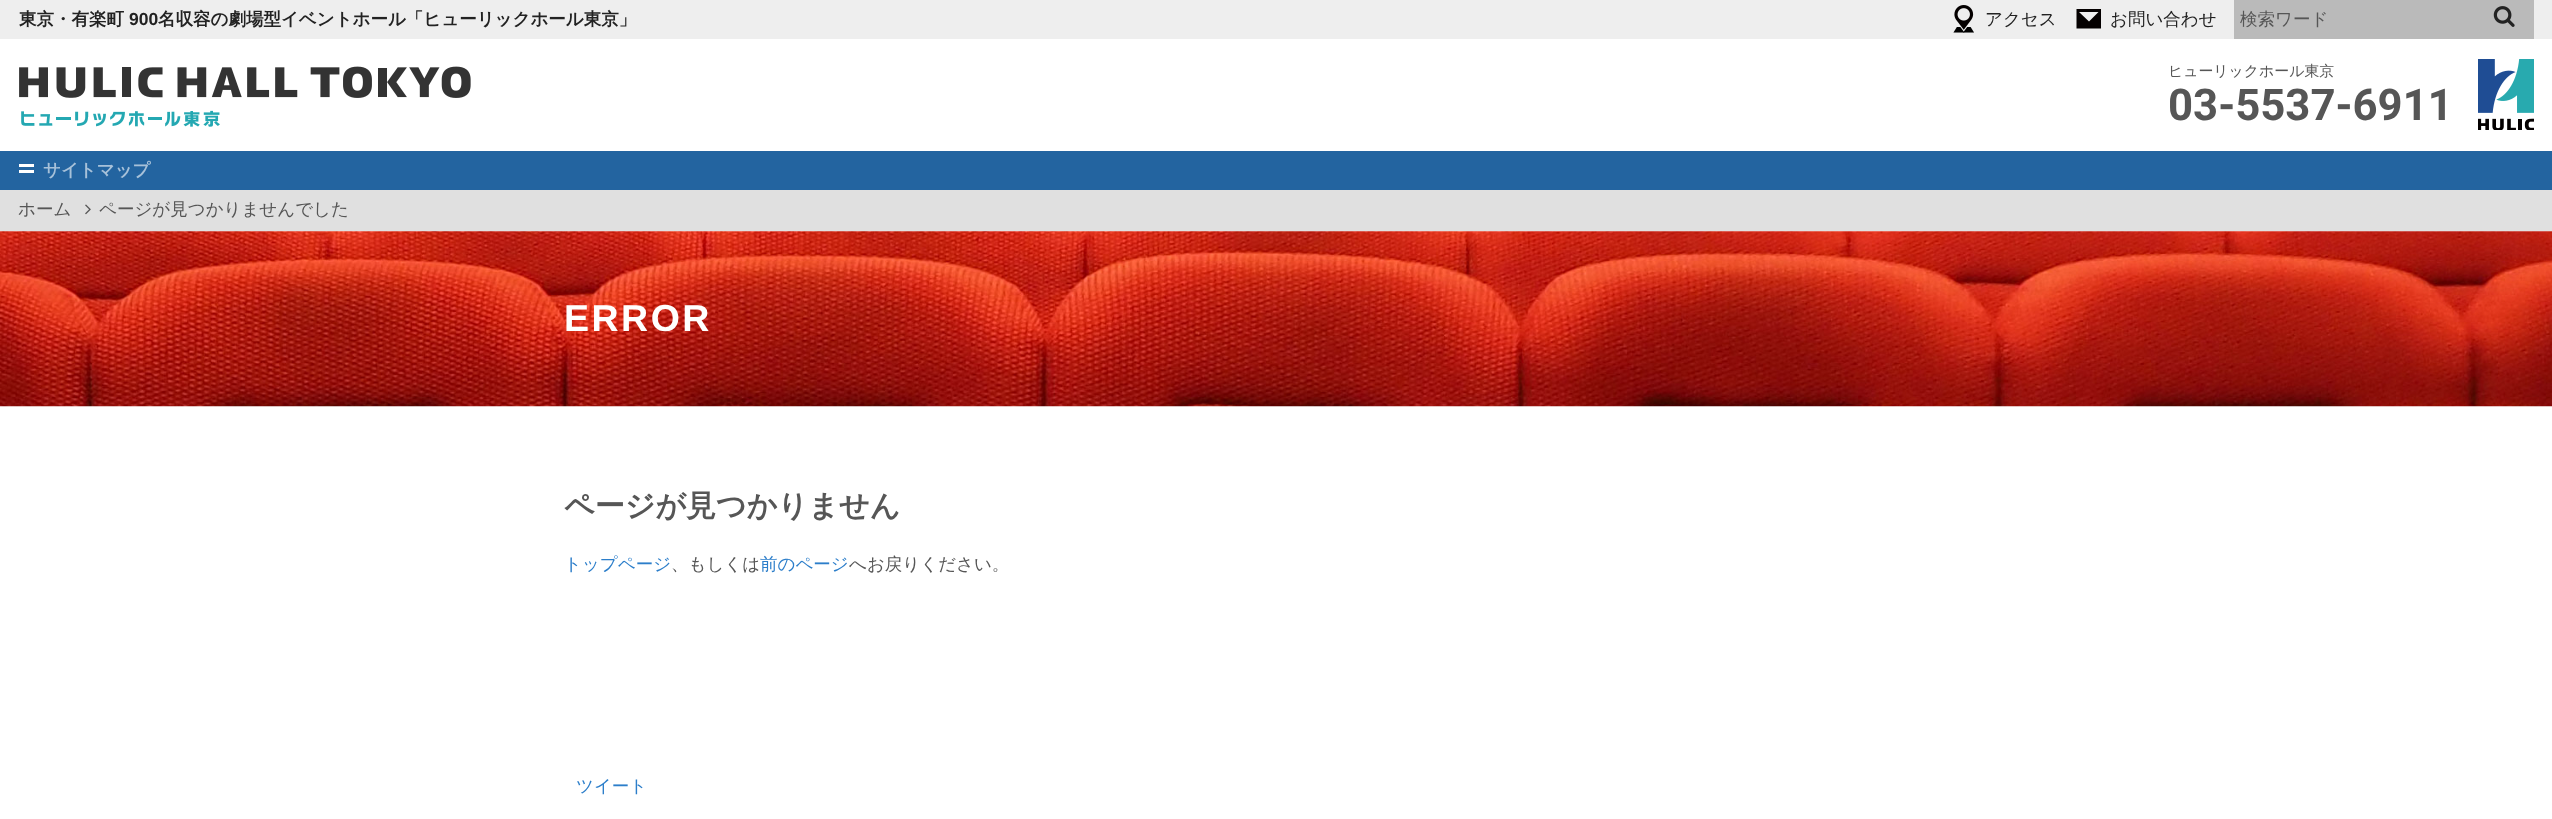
<svg xmlns="http://www.w3.org/2000/svg" width="2552" height="819" viewBox="0 0 2552 819">
  <rect width="100%" height="100%" fill="#fff"/>
  <path d="M0 0h2552v39H0z" fill="#eee"/>
  <image x="1953" y="5" width="21" height="28" href="img/1.png"/>
  <path d="M2076.5 9V28.5H2101V9ZM2089 21.5L2079 12H2098.5Z" fill="#040000"/>
  <path d="M2234 0h300v39H2234z" fill="#bababa"/>
  <image x="2493" y="6" width="22" height="21" href="img/2.png"/>
  <image x="19" y="66" width="452" height="61" href="img/3.png"/>
  <image x="2478" y="59" width="56" height="71" href="img/4.png"/>
  <path d="M0 151h2552v39H0z" fill="#2364a0"/>
  <path d="M19 164h15v3H19z" fill="#fff"/>
  <path d="M19 170h15v3H19z" fill="#fff"/>
  <path d="M0 190h2552v41H0z" fill="#e0e0e0"/>
  <image x="85" y="204" width="6" height="11" href="img/5.png"/>
  <image x="0" y="231" width="2552" height="176" href="img/6.png"/>
  <text x="19" y="25" font-family="WenQuanYi Zen Hei" font-size="17.5" font-weight="bold" fill="#222">東京・有楽町</text>
  <text x="129" y="25" font-family="Liberation Sans" font-size="17.5" font-weight="bold" fill="#222">900</text>
  <text x="158" y="25" font-family="WenQuanYi Zen Hei" font-size="17.5" font-weight="bold" fill="#222">名収容の劇場型イベントホール「ヒューリックホール東京」</text>
  <g font-family="WenQuanYi Zen Hei" font-size="17.5" font-weight="500" fill="#222">
    <text x="1985" y="25">アクセス</text>
    <text x="2110" y="25">お問い合わせ</text>
  </g>
  <text x="2240" y="25" font-family="WenQuanYi Zen Hei" font-size="17.5" font-weight="500" fill="#565656">検索ワード</text>
  <text x="2168" y="76" font-family="WenQuanYi Zen Hei" font-size="14.9" font-weight="500" fill="#565656">ヒューリックホール東京</text>
  <text x="2168" y="120" font-family="Roboto" font-size="43.75" font-weight="bold" fill="#565656">03-5537-6911</text>
  <text x="43" y="176" font-family="WenQuanYi Zen Hei" font-size="17.5" font-weight="bold" fill="#a7c1d9">サイトマップ</text>
  <g font-family="WenQuanYi Zen Hei" font-size="17.5" font-weight="500" fill="#565656">
    <text x="18" y="215">ホーム</text>
    <text x="99" y="215">ページが見つかりませんでした</text>
  </g>
  <text x="564" y="331" font-family="Liberation Sans" font-size="37.5" font-weight="bold" letter-spacing="2.5" fill="#fff">ERROR</text>
  <text x="564" y="516" font-family="WenQuanYi Zen Hei" font-size="30" font-weight="bold" fill="#565656">ページが見つかりません</text>
  <text x="564" y="570" font-family="WenQuanYi Zen Hei" font-size="17.5" font-weight="500" fill="#2c7eca">トップページ</text>
  <text x="671" y="570" font-family="WenQuanYi Zen Hei" font-size="17.5" font-weight="500" fill="#565656">、もしくは</text>
  <text x="760" y="570" font-family="WenQuanYi Zen Hei" font-size="17.5" font-weight="500" fill="#2c7eca">前のページ</text>
  <text x="849" y="570" font-family="WenQuanYi Zen Hei" font-size="17.5" font-weight="500" fill="#565656">へお戻りください。</text>
  <text x="576" y="792" font-family="WenQuanYi Zen Hei" font-size="17.5" font-weight="500" fill="#2c7eca">ツイート</text>
</svg>
